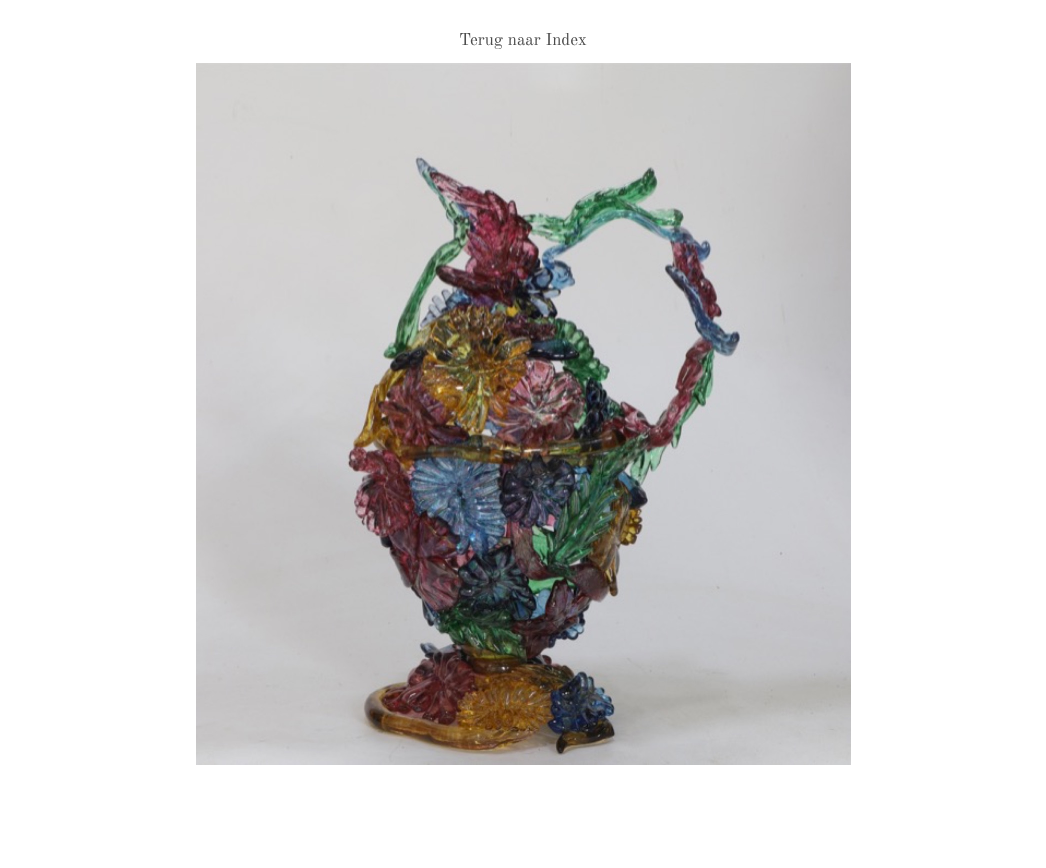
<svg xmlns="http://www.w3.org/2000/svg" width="1046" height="868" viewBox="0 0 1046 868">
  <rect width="100%" height="100%" fill="#fff"/>
  <image x="196" y="63" width="655" height="702" href="img/1.png"/>
  <text x="459" y="45" font-family="Old Standard TT" font-size="17" fill="#4c4c4c">Terug naar Index</text>
</svg>
